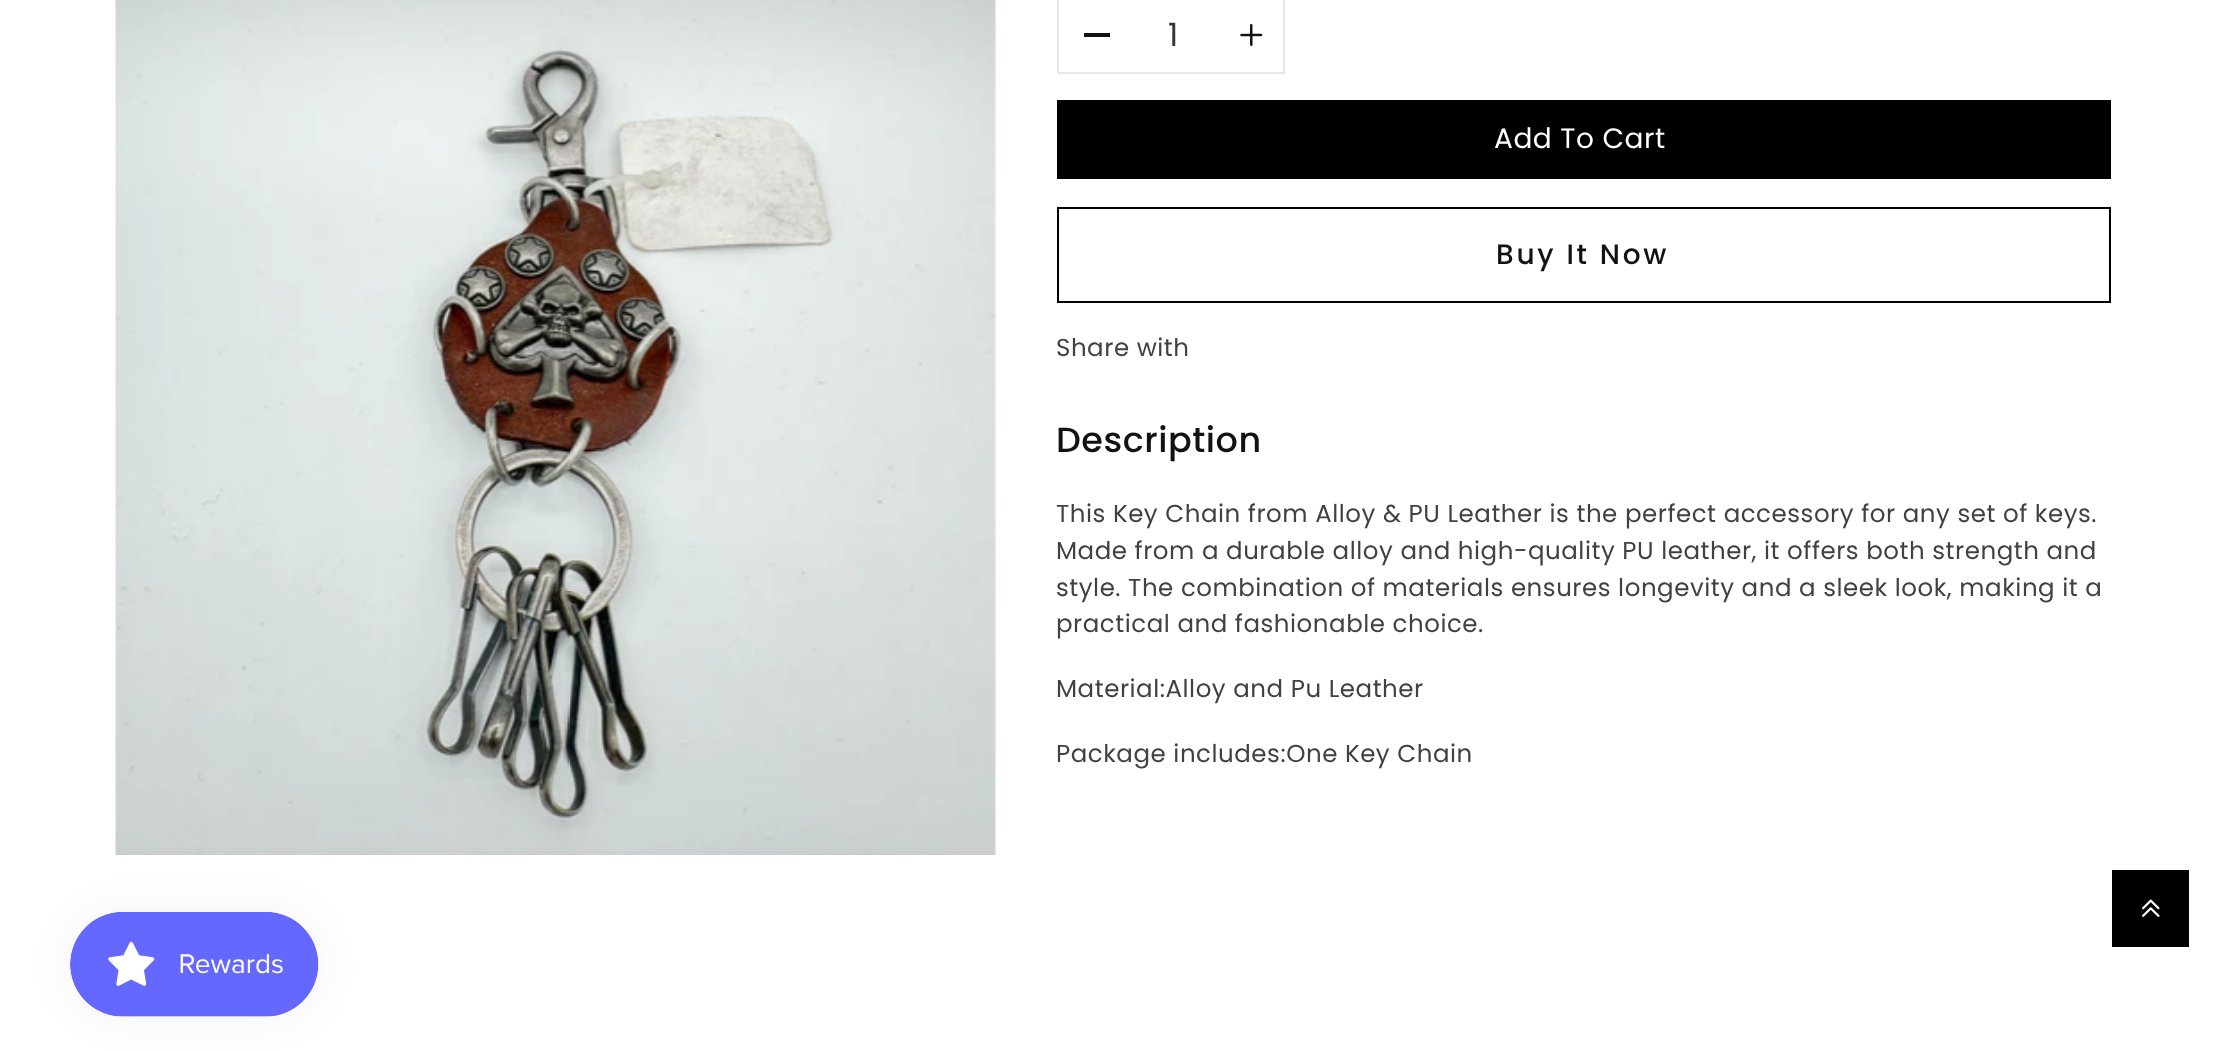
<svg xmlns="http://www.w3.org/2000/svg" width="2224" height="1051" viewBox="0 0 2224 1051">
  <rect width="100%" height="100%" fill="#fff"/>
  <image x="115" y="0" width="881" height="855" href="img/1.png"/>
  <path d="M1084 33h26v4H1084z" fill="#121212"/>
  <image x="1240" y="24" width="23" height="22" href="img/2.png"/>
  <path d="M1058 -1h226v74H1058z" fill="none" stroke="#e7e7e7" stroke-width="2"/>
  <path d="M1057 100h1054v79H1057z" fill="#000"/>
  <path d="M1058 208h1052v94H1058z" fill="none" stroke="#000" stroke-width="2"/>
  <rect x="70" y="912" width="249" height="105" rx="52.5" fill="#0000000d" filter="blur(22px)"/>
  <image x="70" y="912" width="249" height="105" href="img/3.png"/>
  <path d="M2112 870h77v77H2112z" fill="#000"/>
  <image x="2142" y="899" width="18" height="18" href="img/4.png"/>
  <text x="1168" y="46" font-family="Poppins" font-size="32" fill="#363636">1</text>
  <text x="1494" y="148" font-family="Poppins" font-size="28" letter-spacing="0.53" fill="#fff">Add To Cart</text>
  <text x="1496" y="264" font-family="Poppins" font-size="28" font-weight="500" letter-spacing="2.75" fill="#121212">Buy It Now</text>
  <text x="1056" y="356" font-family="Poppins" font-size="24.5" letter-spacing="0.53" fill="#414141">Share with</text>
  <text x="1056" y="452" font-family="Poppins" font-size="35" font-weight="500" letter-spacing="0.53" fill="#121212">Description</text>
  <g font-family="Poppins" font-size="24.5" letter-spacing="0.53" fill="#414141">
    <text x="1056" y="522">This Key Chain from Alloy &amp; PU Leather is the perfect accessory for any set of keys.</text>
    <text x="1056" y="559">Made from a durable alloy and high-quality PU leather, it offers both strength and</text>
    <text x="1056" y="596">style. The combination of materials ensures longevity and a sleek look, making it a</text>
    <text x="1056" y="632">practical and fashionable choice.</text>
    <text x="1056" y="697">Material:Alloy and Pu Leather</text>
    <text x="1056" y="762">Package includes:One Key Chain</text>
  </g>
</svg>
